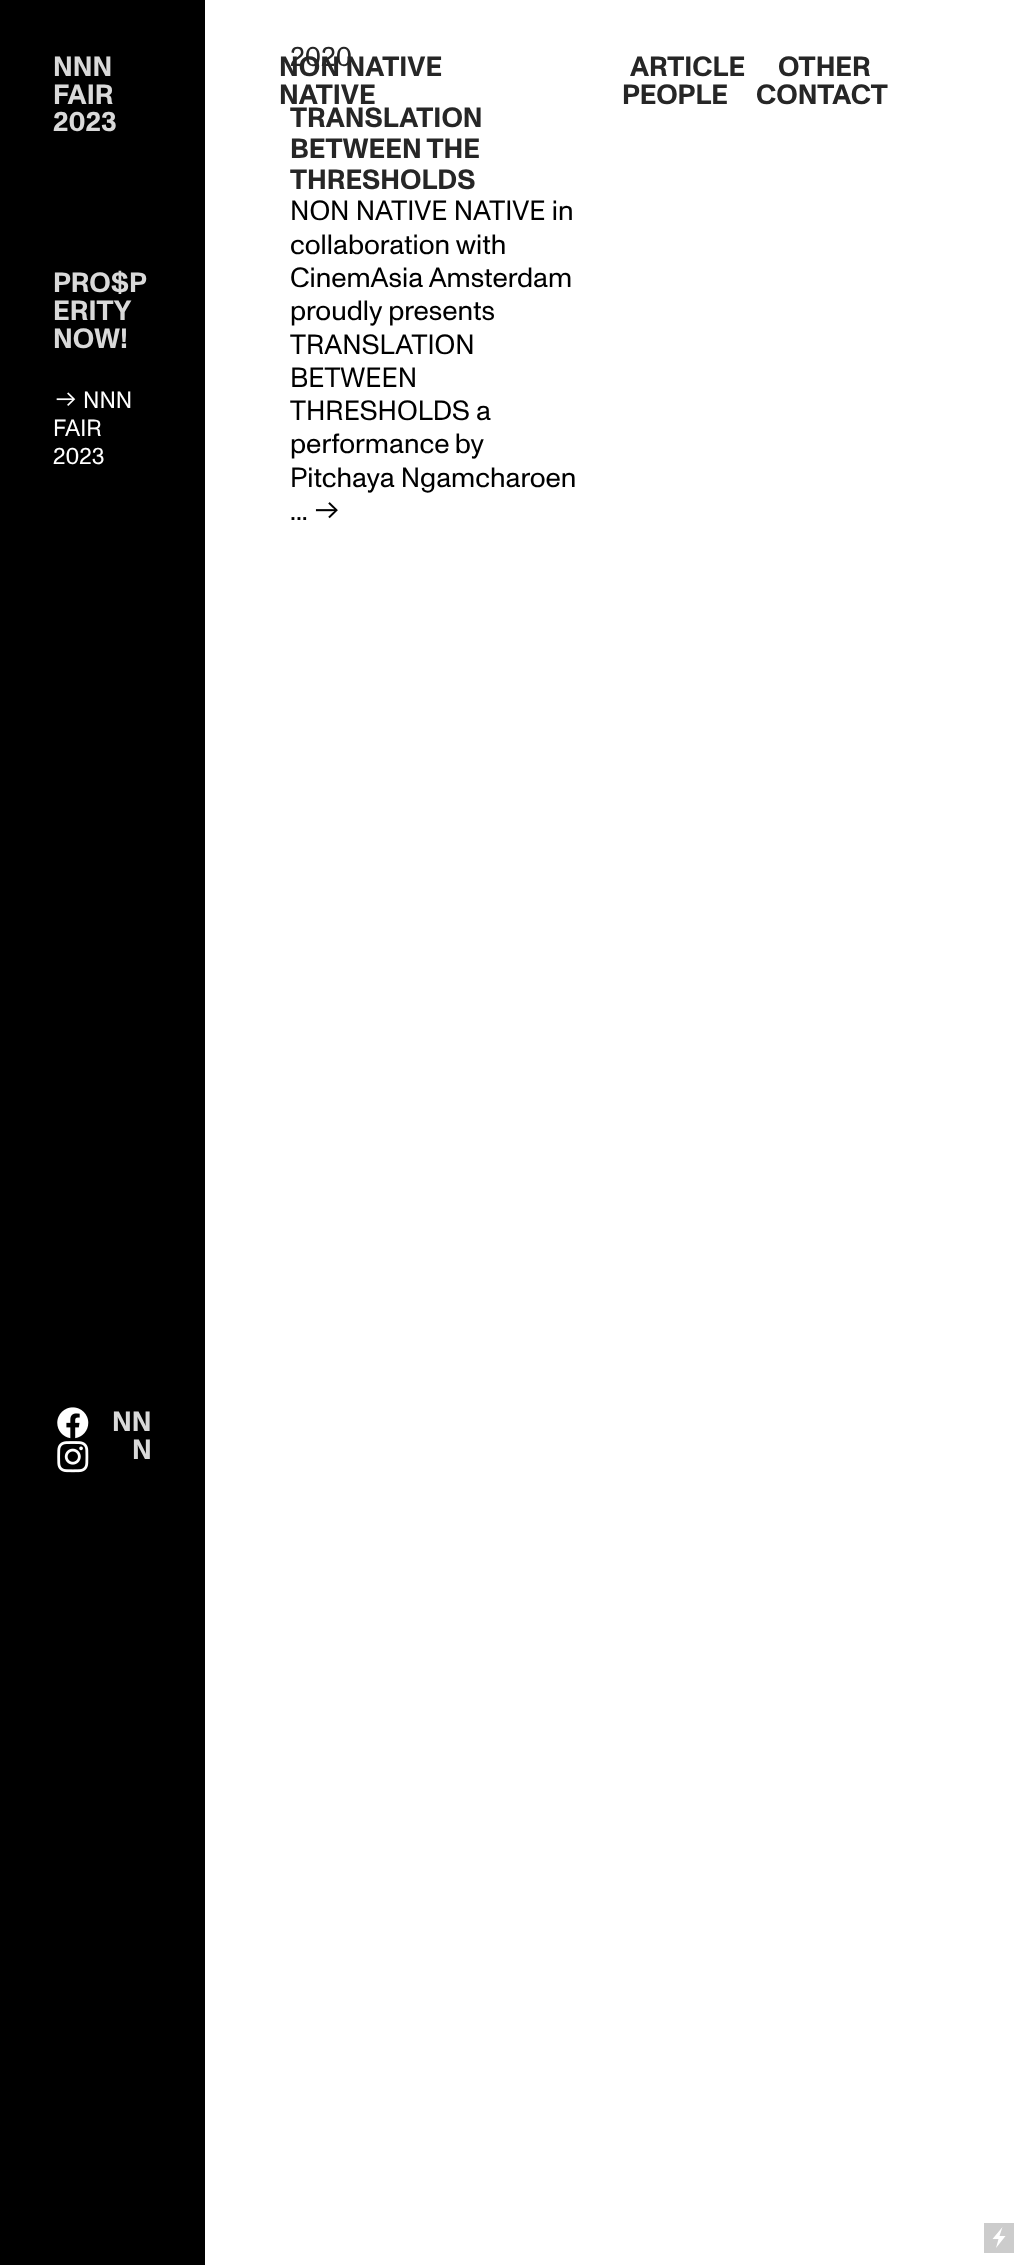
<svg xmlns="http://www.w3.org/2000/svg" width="1026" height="2265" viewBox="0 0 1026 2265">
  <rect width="100%" height="100%" fill="#fff"/>
  <image x="315" y="502" width="23" height="17" href="img/1.png"/>
  <path d="M0 0h205v2265H0z" fill="#000"/>
  <image x="56" y="392" width="20" height="14" href="img/2.png"/>
  <image x="57" y="1407" width="32" height="32" href="img/3.png"/>
  <image x="57" y="1441" width="32" height="32" href="img/4.png"/>
  <path d="M984 2223h30v30H984z" fill="#ccc"/>
  <path d="M1005.5 2236H999.5L1002.5 2227L992.5 2239H998.5L996 2248Z" fill="#fff"/>
  <text x="290" y="66" font-family="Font" font-size="27.75" fill="#262626">2020</text>
  <g font-family="Font" font-size="27.75" font-weight="bold" fill="#262626">
    <text x="290" y="127">TRANSLATION</text>
    <text x="290" y="158">BETWEEN THE</text>
    <text x="290" y="189">THRESHOLDS</text>
  </g>
  <g font-family="Font" font-size="27.75" fill="#000">
    <text x="290" y="220">NON NATIVE NATIVE in</text>
    <text x="290" y="254">collaboration with</text>
    <text x="290" y="287">CinemAsia Amsterdam</text>
    <text x="290" y="320">proudly presents</text>
    <text x="290" y="354">TRANSLATION</text>
    <text x="290" y="387">BETWEEN</text>
    <text x="290" y="420">THRESHOLDS a</text>
    <text x="290" y="453" word-spacing="-1">performance by</text>
    <text x="290" y="487">Pitchaya Ngamcharoen</text>
    <text x="290" y="520">...</text>
  </g>
  <g font-family="Font" font-size="27.75" font-weight="bold" fill="#d9d9d9">
    <text x="53" y="76">NNN</text>
    <text x="53" y="104">FAIR</text>
    <text x="53" y="131">2023</text>
    <text x="53" y="292">PRO$P</text>
    <text x="53" y="320">ERITY</text>
    <text x="53" y="348">NOW!</text>
  </g>
  <g font-family="Font" font-size="23.5" fill="#fff">
    <text x="83" y="408">NNN</text>
    <text x="53" y="436">FAIR</text>
    <text x="53" y="464">2023</text>
  </g>
  <g font-family="Font" font-size="27.75" font-weight="bold" fill="#d9d9d9">
    <text x="112" y="1431">NN</text>
    <text x="132" y="1459">N</text>
  </g>
  <g font-family="Font" font-size="27.75" font-weight="bold" fill="#262626">
    <text x="279" y="76">NON NATIVE</text>
    <text x="279" y="104">NATIVE</text>
    <text x="630" y="76">ARTICLE</text>
    <text x="778" y="76">OTHER</text>
    <text x="622" y="104">PEOPLE</text>
    <text x="756" y="104">CONTACT</text>
  </g>
</svg>
